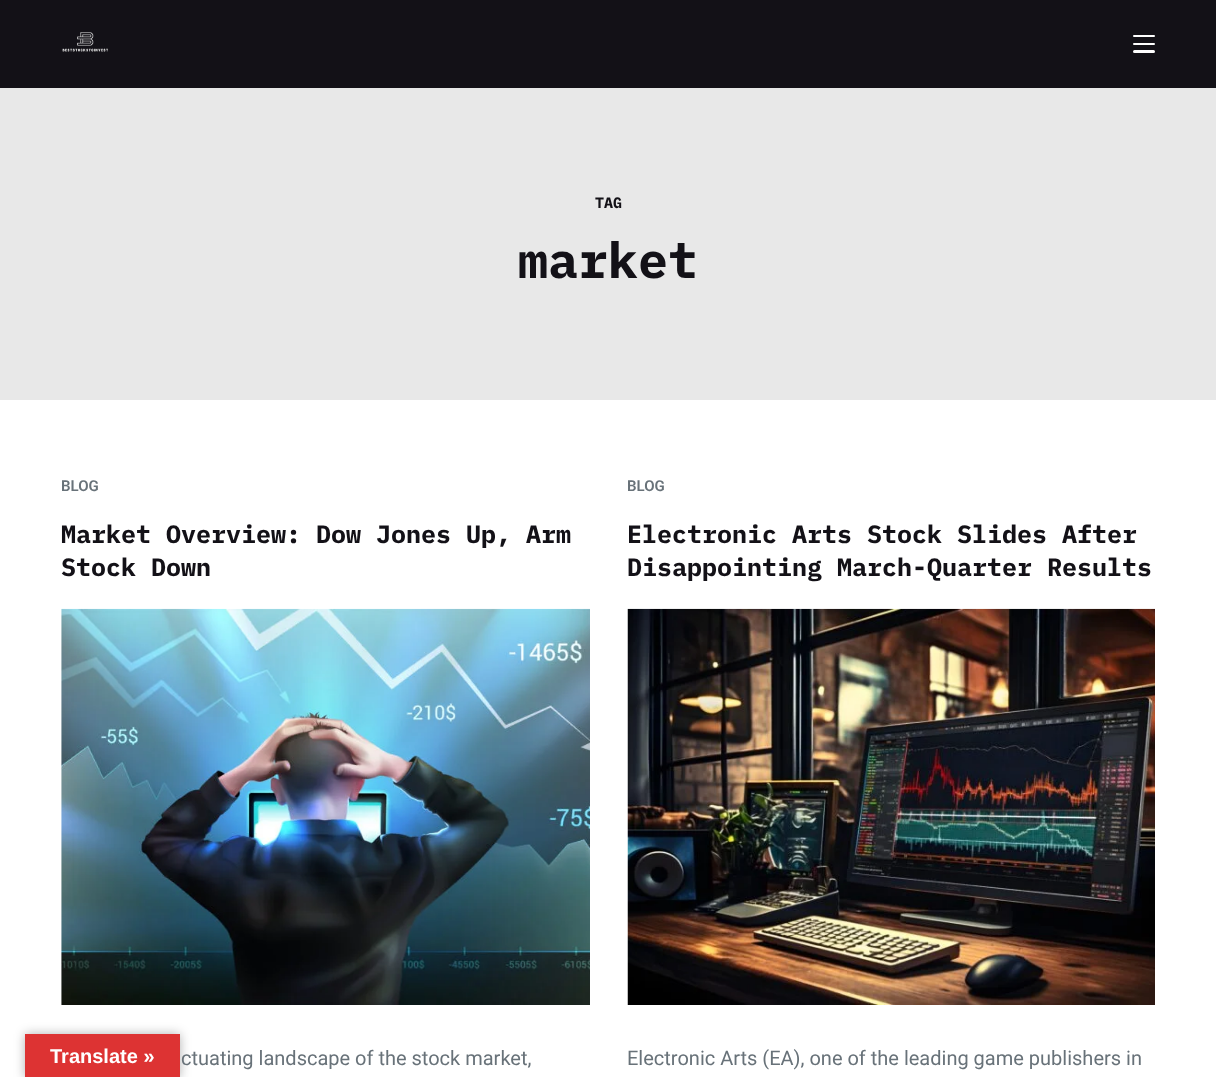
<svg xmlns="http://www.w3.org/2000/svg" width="1216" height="1077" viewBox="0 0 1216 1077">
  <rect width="100%" height="100%" fill="#fff"/>
  <path d="M0 0h1216v88H0z" fill="#131117"/>
  <image x="62" y="32" width="46" height="20" href="img/1.png"/>
  <rect x="1133" y="35" width="22" height="2" rx="1" fill="#fff"/>
  <rect x="1133" y="43" width="22" height="2" rx="1" fill="#fff"/>
  <rect x="1133" y="50" width="22" height="3" rx="1.5" fill="#fff"/>
  <path d="M0 88h1216v312H0z" fill="#e8e8e8"/>
  <image x="61" y="608" width="529" height="397" href="img/2.png"/>
  <image x="627" y="608" width="528" height="397" href="img/3.png"/>
  <path d="M25 1034h155v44H25z" fill="#0000004d" filter="blur(5.5px)"/>
  <path d="M25 1034h155v43H25z" fill="#d33"/>
  <text x="595" y="208" font-family="IBM Plex Mono" font-size="15" font-weight="bold" fill="#131117">TAG</text>
  <text x="518" y="278" font-family="IBM Plex Mono" font-size="50" font-weight="bold" fill="#131117">market</text>
  <text x="61" y="491" font-family="Roboto" font-size="15" font-weight="600" fill="#687279">BLOG</text>
  <g font-family="IBM Plex Mono" font-size="25" font-weight="bold" fill="#131117">
    <text x="61" y="543">Market Overview: Dow Jones Up, Arm</text>
    <text x="61" y="576">Stock Down</text>
  </g>
  <text x="181" y="1065" font-family="Roboto" font-size="20" fill="#687279">ctuating landscape of the stock market,</text>
  <text x="627" y="491" font-family="Roboto" font-size="15" font-weight="600" fill="#687279">BLOG</text>
  <g font-family="IBM Plex Mono" font-size="25" font-weight="bold" fill="#131117">
    <text x="627" y="543">Electronic Arts Stock Slides After</text>
    <text x="627" y="576">Disappointing March-Quarter Results</text>
  </g>
  <text x="627" y="1065" font-family="Roboto" font-size="20" fill="#687279">Electronic Arts (EA), one of the leading game publishers in</text>
  <text x="50" y="1063" font-family="Liberation Sans" font-size="20" font-weight="bold" fill="#fff">Translate »</text>
</svg>
